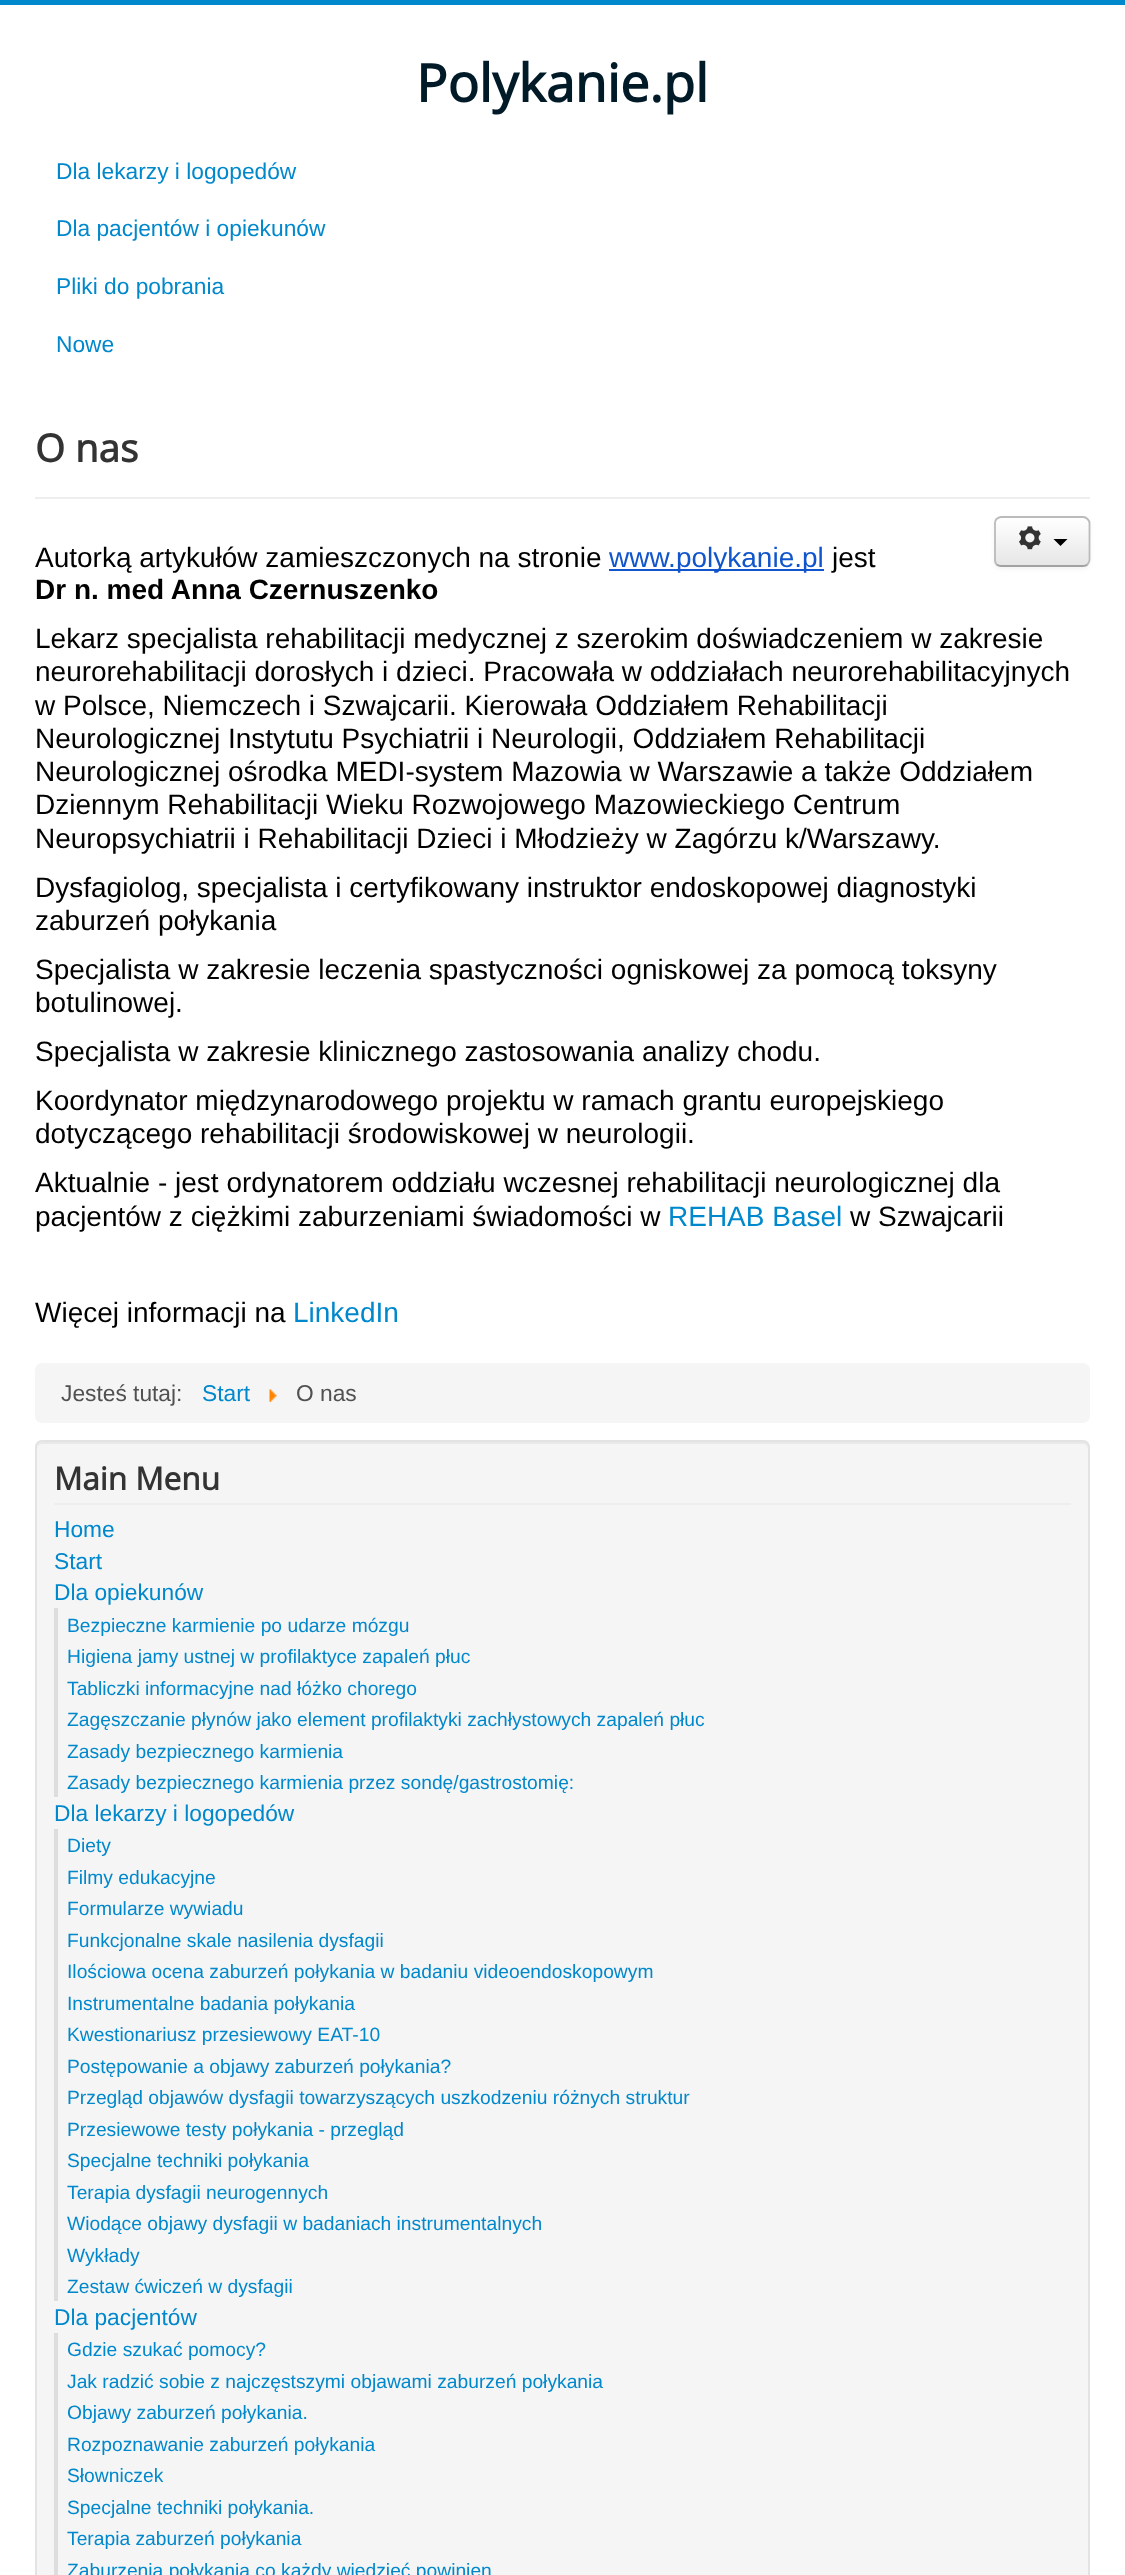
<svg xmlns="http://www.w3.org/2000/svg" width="1125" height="2575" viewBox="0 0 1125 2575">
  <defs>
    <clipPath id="clip1"><rect x="994" y="516" width="96" height="51" rx="7"/></clipPath>
    <linearGradient id="g1" gradientUnits="userSpaceOnUse" x1="1042" y1="518" x2="1042" y2="565"><stop offset="0" stop-color="#fff"/><stop offset="1" stop-color="#e6e6e6"/></linearGradient>
  </defs>
  <rect width="100%" height="100%" fill="#fff"/>
  <path d="M0 0h1125v5H0z" fill="#08c"/>
  <path d="M35 497h1055v2H35z" fill="#eee"/>
  <rect x="994" y="518" width="96" height="51" rx="7" fill="#0000000d" filter="blur(2px)"/>
  <rect x="994" y="516" width="96" height="51" rx="7" fill="#f5f5f5"/>
  <g clip-path="url(#clip1)">
    <path d="M994 518h96v47H994z" fill="url(#g1)"/>
  </g>
  <path d="M1001 520H1069C1090 520 1088 518 1088 537V563C1089 562 1089 561 1089 560V523C1089 520 1087 518 1084 518H1001C998 518 996 520 996 523V525C996 522 998 520 1001 520Z" fill="#ffffff33"/>
  <path d="M1087.5 564.5C1086.5 565.5 1085 566 1083 566H1001C999.5 566 998 565.5 996.5 564.5" fill="none" stroke="#a2a2a2" stroke-width="1.8"/>
  <path d="M996.5 564.5C995.5 563 995 561.5 995 560V523C995 521.5 995.5 520 996.5 519C998 518 999.5 517 1001 517H1083C1085 517 1086.5 518 1087.5 519C1088.5 520 1089.5 521.5 1089.5 523V560C1089.5 561.5 1088.5 563 1087.5 564.5" fill="none" stroke="#bbb" stroke-width="1.8"/>
  <image x="1019" y="526" width="22" height="24" href="img/1.png"/>
  <path d="M1053.5 539H1067.5L1060.5 546Z" fill="#000"/>
  <path d="M609 569h215v2H609z" fill="#15c"/>
  <rect x="35" y="1363" width="1055" height="60" rx="7" fill="#f5f5f5"/>
  <image x="269" y="1389" width="8" height="13" href="img/2.png"/>
  <rect x="35" y="1440" width="1055" height="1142" rx="7" fill="#f5f5f5"/>
  <path d="M42 1444H1083C1086 1444 1088 1446 1088 1449V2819L1087 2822C1088 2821 1089 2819 1089 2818V1447C1089 1444 1087 1442 1084 1442H42C39 1442 37 1444 37 1447V1449C37 1446 39 1444 42 1444Z" fill="#e9e9e9"/>
  <rect x="36" y="1441" width="1053" height="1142" rx="6" fill="none" stroke="#e3e3e3" stroke-width="2"/>
  <path d="M54 1503h1017v2H54z" fill="#eee"/>
  <path d="M54 1608h4v189H54z" fill="#ddd"/>
  <path d="M54 1829h4v472H54z" fill="#ddd"/>
  <path d="M54 2333h4v242H54z" fill="#ddd"/>
  <text x="416" y="102" font-family="Open Sans" font-size="52.25" font-weight="bold" fill="#001a27">Polykanie.pl</text>
  <g font-family="Liberation Sans" font-size="22.75" fill="#08c">
    <text x="56" y="179">Dla lekarzy i logopedów</text>
    <text x="56" y="236">Dla pacjentów i opiekunów</text>
    <text x="56" y="294">Pliki do pobrania</text>
    <text x="56" y="352">Nowe</text>
  </g>
  <text x="35" y="462" font-family="Open Sans" font-size="38.5" font-weight="bold" fill="#333">O nas</text>
  <text x="35" y="567" font-family="Liberation Sans" font-size="28" fill="#000">Autorką artykułów zamieszczonych na stronie</text>
  <text x="609" y="567" font-family="Liberation Sans" font-size="28" fill="#15c">www.polykanie.pl</text>
  <text x="832" y="567" font-family="Liberation Sans" font-size="28" fill="#000">jest</text>
  <text x="35" y="599" font-family="Liberation Sans" font-size="28" font-weight="bold" fill="#000">Dr n. med Anna Czernuszenko</text>
  <g font-family="Liberation Sans" font-size="28" fill="#000">
    <text x="35" y="648">Lekarz specjalista rehabilitacji medycznej z szerokim doświadczeniem w zakresie</text>
    <text x="35" y="681">neurorehabilitacji dorosłych i dzieci. Pracowała w oddziałach neurorehabilitacyjnych</text>
    <text x="35" y="715">w Polsce, Niemczech i Szwajcarii. Kierowała Oddziałem Rehabilitacji</text>
    <text x="35" y="748">Neurologicznej Instytutu Psychiatrii i Neurologii, Oddziałem Rehabilitacji</text>
    <text x="35" y="781">Neurologicznej ośrodka MEDI-system Mazowia w Warszawie a także Oddziałem</text>
    <text x="35" y="814">Dziennym Rehabilitacji Wieku Rozwojowego Mazowieckiego Centrum</text>
    <text x="35" y="848">Neuropsychiatrii i Rehabilitacji Dzieci i Młodzieży w Zagórzu k/Warszawy.</text>
    <text x="35" y="897">Dysfagiolog, specjalista i certyfikowany instruktor endoskopowej diagnostyki</text>
    <text x="35" y="930">zaburzeń połykania</text>
    <text x="35" y="979">Specjalista w zakresie leczenia spastyczności ogniskowej za pomocą toksyny</text>
    <text x="35" y="1012">botulinowej.</text>
    <text x="35" y="1061">Specjalista w zakresie klinicznego zastosowania analizy chodu.</text>
    <text x="35" y="1110">Koordynator międzynarodowego projektu w ramach grantu europejskiego</text>
    <text x="35" y="1143">dotyczącego rehabilitacji środowiskowej w neurologii.</text>
    <text x="35" y="1192">Aktualnie - jest ordynatorem oddziału wczesnej rehabilitacji neurologicznej dla</text>
    <text x="35" y="1226">pacjentów z ciężkimi zaburzeniami świadomości w</text>
  </g>
  <text x="668" y="1226" font-family="Liberation Sans" font-size="28" fill="#08c">REHAB Basel</text>
  <g font-family="Liberation Sans" font-size="28" fill="#000">
    <text x="850" y="1226">w Szwajcarii</text>
    <text x="35" y="1322">Więcej informacji na</text>
  </g>
  <text x="293" y="1322" font-family="Liberation Sans" font-size="28" fill="#08c">LinkedIn</text>
  <text x="61" y="1401" font-family="Liberation Sans" font-size="22.75" fill="#515151">Jesteś tutaj:</text>
  <text x="202" y="1401" font-family="Liberation Sans" font-size="22.75" fill="#08c">Start</text>
  <text x="296" y="1401" font-family="Liberation Sans" font-size="22.75" fill="#515151">O nas</text>
  <text x="54" y="1490" font-family="Open Sans" font-size="31.5" font-weight="bold" fill="#333">Main Menu</text>
  <g font-family="Liberation Sans" font-size="22.75" fill="#08c">
    <text x="54" y="1537">Home</text>
    <text x="54" y="1569">Start</text>
    <text x="54" y="1600">Dla opiekunów</text>
  </g>
  <g font-family="Liberation Sans" font-size="19.25" fill="#08c">
    <text x="67" y="1632">Bezpieczne karmienie po udarze mózgu</text>
    <text x="67" y="1663">Higiena jamy ustnej w profilaktyce zapaleń płuc</text>
    <text x="67" y="1695">Tabliczki informacyjne nad łóżko chorego</text>
    <text x="67" y="1726">Zagęszczanie płynów jako element profilaktyki zachłystowych zapaleń płuc</text>
    <text x="67" y="1758">Zasady bezpiecznego karmienia</text>
    <text x="67" y="1789">Zasady bezpiecznego karmienia przez sondę/gastrostomię:</text>
  </g>
  <text x="54" y="1821" font-family="Liberation Sans" font-size="22.75" fill="#08c">Dla lekarzy i logopedów</text>
  <g font-family="Liberation Sans" font-size="19.25" fill="#08c">
    <text x="67" y="1852">Diety</text>
    <text x="67" y="1884">Filmy edukacyjne</text>
    <text x="67" y="1915">Formularze wywiadu</text>
    <text x="67" y="1947">Funkcjonalne skale nasilenia dysfagii</text>
    <text x="67" y="1978">Ilościowa ocena zaburzeń połykania w badaniu videoendoskopowym</text>
    <text x="67" y="2010">Instrumentalne badania połykania</text>
    <text x="67" y="2041">Kwestionariusz przesiewowy EAT-10</text>
    <text x="67" y="2073">Postępowanie a objawy zaburzeń połykania?</text>
    <text x="67" y="2104">Przegląd objawów dysfagii towarzyszących uszkodzeniu różnych struktur</text>
    <text x="67" y="2136">Przesiewowe testy połykania - przegląd</text>
    <text x="67" y="2167">Specjalne techniki połykania</text>
    <text x="67" y="2199">Terapia dysfagii neurogennych</text>
    <text x="67" y="2230">Wiodące objawy dysfagii w badaniach instrumentalnych</text>
    <text x="67" y="2262">Wykłady</text>
    <text x="67" y="2293">Zestaw ćwiczeń w dysfagii</text>
  </g>
  <text x="54" y="2325" font-family="Liberation Sans" font-size="22.75" fill="#08c">Dla pacjentów</text>
  <g font-family="Liberation Sans" font-size="19.25" fill="#08c">
    <text x="67" y="2356">Gdzie szukać pomocy?</text>
    <text x="67" y="2388">Jak radzić sobie z najczęstszymi objawami zaburzeń połykania</text>
    <text x="67" y="2419">Objawy zaburzeń połykania.</text>
    <text x="67" y="2451">Rozpoznawanie zaburzeń połykania</text>
    <text x="67" y="2482">Słowniczek</text>
    <text x="67" y="2514">Specjalne techniki połykania.</text>
    <text x="67" y="2545">Terapia zaburzeń połykania</text>
    <text x="67" y="2577">Zaburzenia połykania co każdy wiedzieć powinien</text>
  </g>
</svg>
